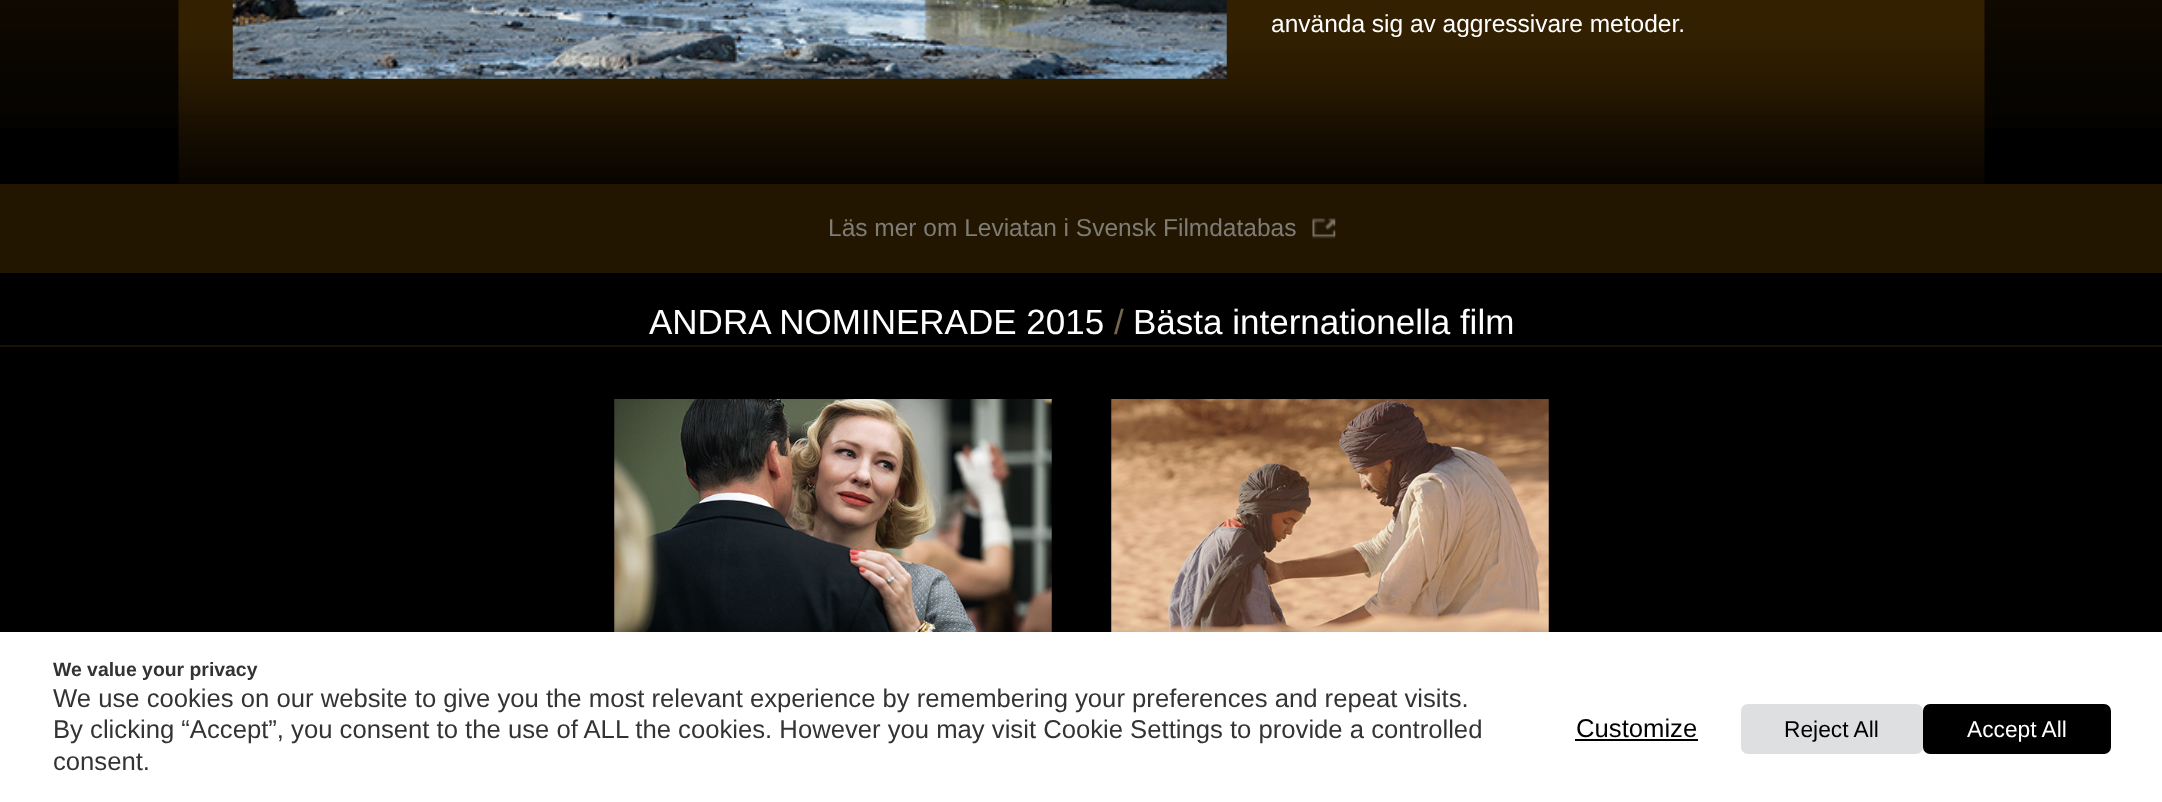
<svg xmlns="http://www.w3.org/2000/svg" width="2162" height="802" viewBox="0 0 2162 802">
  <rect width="100%" height="100%" fill="#000"/>
  <image x="0" y="0" width="2162" height="128" href="img/1.png"/>
  <image x="178" y="0" width="1807" height="184" href="img/2.png"/>
  <image x="232" y="0" width="995" height="79" href="img/3.png"/>
  <path d="M0 184h2162v89H0z" fill="#221601"/>
  <image x="1312" y="218" width="24" height="21" href="img/4.png"/>
  <path d="M0 345h2162v2H0z" fill="#1b1104"/>
  <image x="614" y="399" width="438" height="233" href="img/5.png"/>
  <image x="1111" y="399" width="438" height="233" href="img/6.png"/>
  <path d="M0 641h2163v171H0z" fill="#00000080" filter="blur(9px)"/>
  <path d="M0 632h2162v170H0z" fill="#fff"/>
  <path d="M1575 739h123v2H1575z" fill="#000"/>
  <rect x="1741" y="704" width="182" height="50" rx="7" fill="#dedfe0"/>
  <rect x="1923" y="704" width="188" height="50" rx="7" fill="#000"/>
  <text x="1271" y="32" font-family="Liberation Sans" font-size="24.5" fill="#fff">använda sig av aggressivare metoder.</text>
  <text x="828" y="236" font-family="Liberation Sans" font-size="24.5" fill="#7f7b75">Läs mer om Leviatan i Svensk Filmdatabas</text>
  <text x="649" y="334" font-family="Liberation Sans" font-size="35" fill="#fff">ANDRA NOMINERADE 2015</text>
  <text x="1114" y="334" font-family="Liberation Sans" font-size="35" fill="#76684f">/</text>
  <text x="1133" y="334" font-family="Liberation Sans" font-size="35" fill="#fff">Bästa internationella film</text>
  <text x="53" y="676" font-family="Liberation Sans" font-size="19.4" font-weight="bold" fill="#333">We value your privacy</text>
  <g font-family="Liberation Sans" font-size="25.67" fill="#333">
    <text x="53" y="707">We use cookies on our website to give you the most relevant experience by remembering your preferences and repeat visits.</text>
    <text x="53" y="738">By clicking “Accept”, you consent to the use of ALL the cookies. However you may visit Cookie Settings to provide a controlled</text>
    <text x="53" y="770">consent.</text>
  </g>
  <text x="1576" y="737" font-family="Liberation Sans" font-size="25.67" fill="#000">Customize</text>
  <text x="1784" y="737" font-family="Liberation Sans" font-size="22.75" fill="#000">Reject All</text>
  <text x="1967" y="737" font-family="Liberation Sans" font-size="22.75" fill="#fff">Accept All</text>
</svg>
